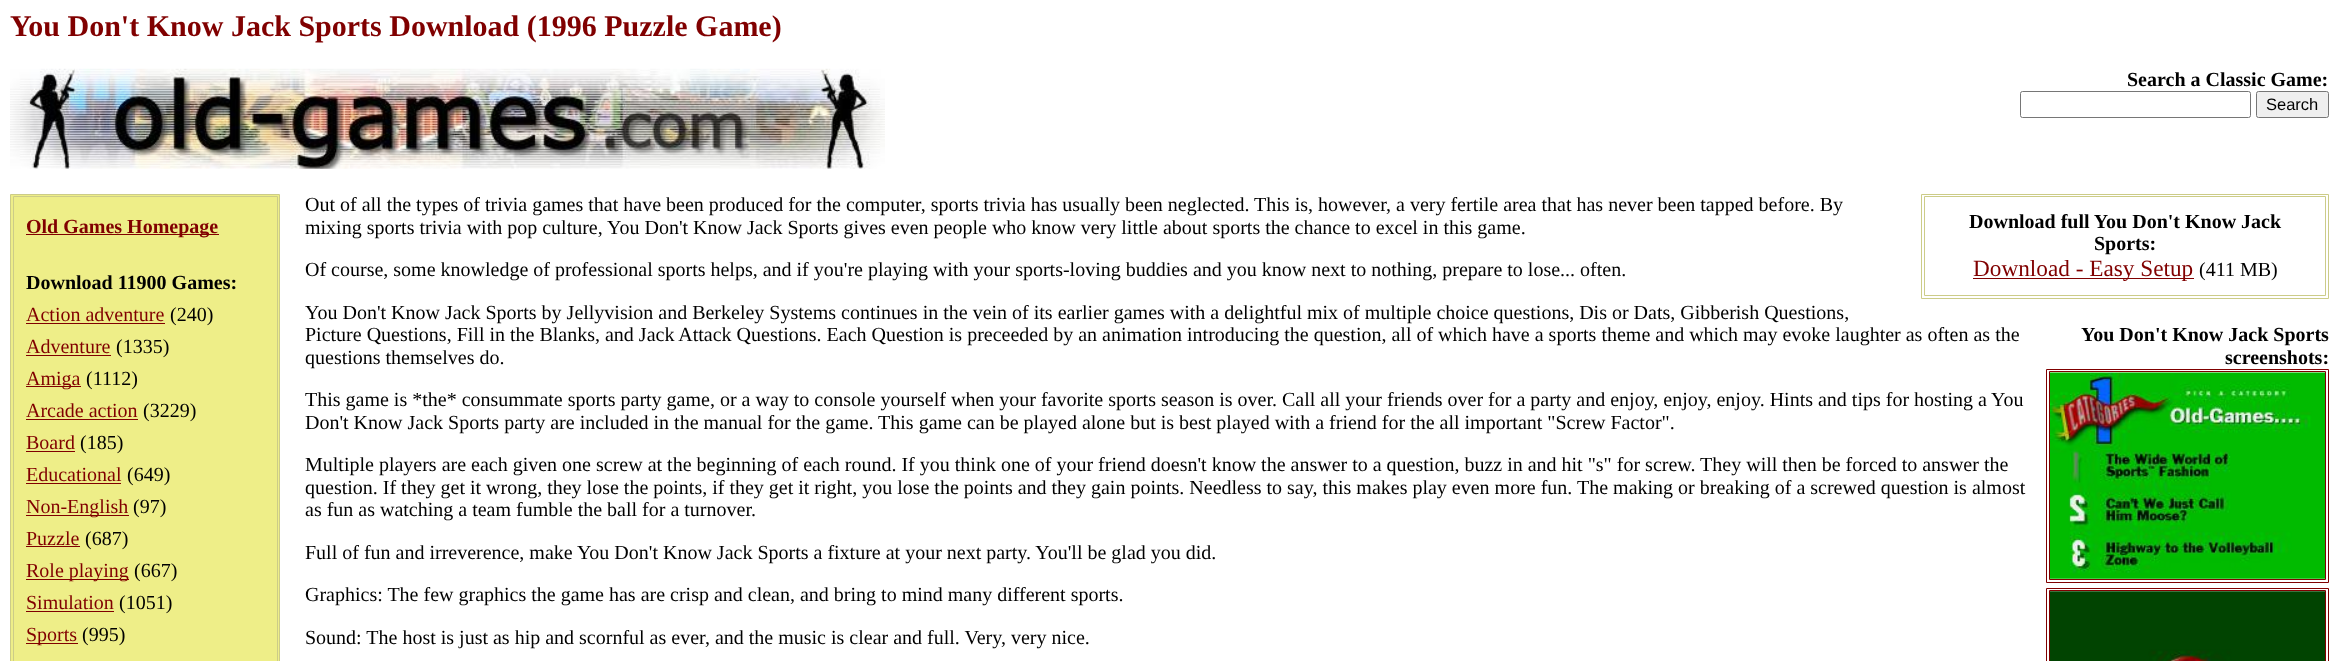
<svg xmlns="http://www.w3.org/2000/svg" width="2338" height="661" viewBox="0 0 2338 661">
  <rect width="100%" height="100%" fill="#fff"/>
  <image x="10" y="68" width="875" height="101" href="img/1.png"/>
  <rect x="2020.5" y="91.5" width="230" height="26" rx="2" fill="none" stroke="#767676"/>
  <rect x="2256.5" y="91.5" width="72" height="26" rx="2" fill="#efefef" stroke="#767676"/>
  <path d="M10.5 194.5h269v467H10.5z" fill="#ee8" stroke="#cc8"/>
  <path d="M13.5 196.5h264v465H13.5z" fill="none" stroke="#cc8"/>
  <path d="M26 234h193v1H26z" fill="#800000"/>
  <path d="M26 323h139v1H26z" fill="#800000"/>
  <path d="M26 355h85v1H26z" fill="#800000"/>
  <path d="M26 386h55v1H26z" fill="#800000"/>
  <path d="M26 419h112v1H26z" fill="#800000"/>
  <path d="M26 451h49v1H26z" fill="#800000"/>
  <path d="M26 483h95v1H26z" fill="#800000"/>
  <path d="M26 515h103v1H26z" fill="#800000"/>
  <path d="M26 546h54v1H26z" fill="#800000"/>
  <path d="M26 579h103v1H26z" fill="#800000"/>
  <path d="M26 611h88v1H26z" fill="#800000"/>
  <path d="M26 643h52v1H26z" fill="#800000"/>
  <path d="M1921.5 194.5h407v104H1921.5z" fill="none" stroke="#cc8"/>
  <path d="M1924.5 196.5h401v99H1924.5z" fill="none" stroke="#cc8"/>
  <path d="M1973 278h221v1H1973z" fill="#800000"/>
  <path d="M2046.5 369.5h282v213H2046.5z" fill="none" stroke="#800000"/>
  <path d="M2049.5 371.5h276v208H2049.5z" fill="none" stroke="#800000"/>
  <image x="2050" y="372" width="275" height="207" href="img/2.png"/>
  <path d="M2046.5 588.5h282v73H2046.5z" fill="none" stroke="#800000"/>
  <path d="M2049.5 590.5h276v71H2049.5z" fill="none" stroke="#800000"/>
  <image x="2050" y="591" width="275" height="70" href="img/3.png"/>
  <text x="10" y="36" font-family="Liberation Serif" font-size="30" font-weight="bold" fill="#800000">You Don't Know Jack Sports Download (1996 Puzzle Game)</text>
  <text x="2127" y="86" font-family="Liberation Serif" font-size="20" font-weight="bold" fill="#000">Search a Classic Game:</text>
  <text x="2266" y="110" font-family="Liberation Sans" font-size="16.5" fill="#000">Search</text>
  <text x="26" y="233" font-family="Liberation Serif" font-size="20" font-weight="bold" fill="#800000">Old Games Homepage</text>
  <text x="26" y="289" font-family="Liberation Serif" font-size="20" font-weight="bold" fill="#000">Download 11900 Games:</text>
  <text x="26" y="321" font-family="Liberation Serif" font-size="20" fill="#800000">Action adventure</text>
  <text x="170" y="321" font-family="Liberation Serif" font-size="20" fill="#000">(240)</text>
  <text x="26" y="353" font-family="Liberation Serif" font-size="20" fill="#800000">Adventure</text>
  <text x="116" y="353" font-family="Liberation Serif" font-size="20" fill="#000">(1335)</text>
  <text x="26" y="385" font-family="Liberation Serif" font-size="20" fill="#800000">Amiga</text>
  <text x="86" y="385" font-family="Liberation Serif" font-size="20" fill="#000">(1112)</text>
  <text x="26" y="417" font-family="Liberation Serif" font-size="20" fill="#800000">Arcade action</text>
  <text x="143" y="417" font-family="Liberation Serif" font-size="20" fill="#000">(3229)</text>
  <text x="26" y="449" font-family="Liberation Serif" font-size="20" fill="#800000">Board</text>
  <text x="80" y="449" font-family="Liberation Serif" font-size="20" fill="#000">(185)</text>
  <text x="26" y="481" font-family="Liberation Serif" font-size="20" fill="#800000">Educational</text>
  <text x="127" y="481" font-family="Liberation Serif" font-size="20" fill="#000">(649)</text>
  <text x="26" y="513" font-family="Liberation Serif" font-size="20" fill="#800000">Non-English</text>
  <text x="133" y="513" font-family="Liberation Serif" font-size="20" fill="#000">(97)</text>
  <text x="26" y="545" font-family="Liberation Serif" font-size="20" fill="#800000">Puzzle</text>
  <text x="85" y="545" font-family="Liberation Serif" font-size="20" fill="#000">(687)</text>
  <text x="26" y="577" font-family="Liberation Serif" font-size="20" fill="#800000">Role playing</text>
  <text x="134" y="577" font-family="Liberation Serif" font-size="20" fill="#000">(667)</text>
  <text x="26" y="609" font-family="Liberation Serif" font-size="20" fill="#800000">Simulation</text>
  <text x="119" y="609" font-family="Liberation Serif" font-size="20" fill="#000">(1051)</text>
  <text x="26" y="641" font-family="Liberation Serif" font-size="20" fill="#800000">Sports</text>
  <g font-family="Liberation Serif" font-size="20" fill="#000">
    <text x="82" y="641">(995)</text>
    <text x="305" y="211">Out of all the types of trivia games that have been produced for the computer, sports trivia has usually been neglected. This is, however, a very fertile area that has never been tapped before. By</text>
    <text x="305" y="234">mixing sports trivia with pop culture, You Don't Know Jack Sports gives even people who know very little about sports the chance to excel in this game.</text>
    <text x="305" y="276">Of course, some knowledge of professional sports helps, and if you're playing with your sports-loving buddies and you know next to nothing, prepare to lose... often.</text>
    <text x="305" y="319">You Don't Know Jack Sports by Jellyvision and Berkeley Systems continues in the vein of its earlier games with a delightful mix of multiple choice questions, Dis or Dats, Gibberish Questions,</text>
    <text x="305" y="341">Picture Questions, Fill in the Blanks, and Jack Attack Questions. Each Question is preceeded by an animation introducing the question, all of which have a sports theme and which may evoke laughter as often as the</text>
    <text x="305" y="364">questions themselves do.</text>
    <text x="305" y="406">This game is *the* consummate sports party game, or a way to console yourself when your favorite sports season is over. Call all your friends over for a party and enjoy, enjoy, enjoy. Hints and tips for hosting a You</text>
    <text x="305" y="429">Don't Know Jack Sports party are included in the manual for the game. This game can be played alone but is best played with a friend for the all important "Screw Factor".</text>
    <text x="305" y="471">Multiple players are each given one screw at the beginning of each round. If you think one of your friend doesn't know the answer to a question, buzz in and hit "s" for screw. They will then be forced to answer the</text>
    <text x="305" y="494">question. If they get it wrong, they lose the points, if they get it right, you lose the points and they gain points. Needless to say, this makes play even more fun. The making or breaking of a screwed question is almost</text>
    <text x="305" y="516">as fun as watching a team fumble the ball for a turnover.</text>
    <text x="305" y="559">Full of fun and irreverence, make You Don't Know Jack Sports a fixture at your next party. You'll be glad you did.</text>
    <text x="305" y="601">Graphics: The few graphics the game has are crisp and clean, and bring to mind many different sports.</text>
    <text x="305" y="644">Sound: The host is just as hip and scornful as ever, and the music is clear and full. Very, very nice.</text>
  </g>
  <g font-family="Liberation Serif" font-size="20" font-weight="bold" fill="#000">
    <text x="1969" y="228">Download full You Don't Know Jack</text>
    <text x="2094" y="250">Sports:</text>
  </g>
  <text x="1973" y="276" font-family="Liberation Serif" font-size="23.25" fill="#800000">Download - Easy Setup</text>
  <text x="2199" y="276" font-family="Liberation Serif" font-size="20" fill="#000">(411 MB)</text>
  <g font-family="Liberation Serif" font-size="20" font-weight="bold" fill="#000">
    <text x="2081" y="341">You Don't Know Jack Sports</text>
    <text x="2225" y="364">screenshots:</text>
  </g>
</svg>
